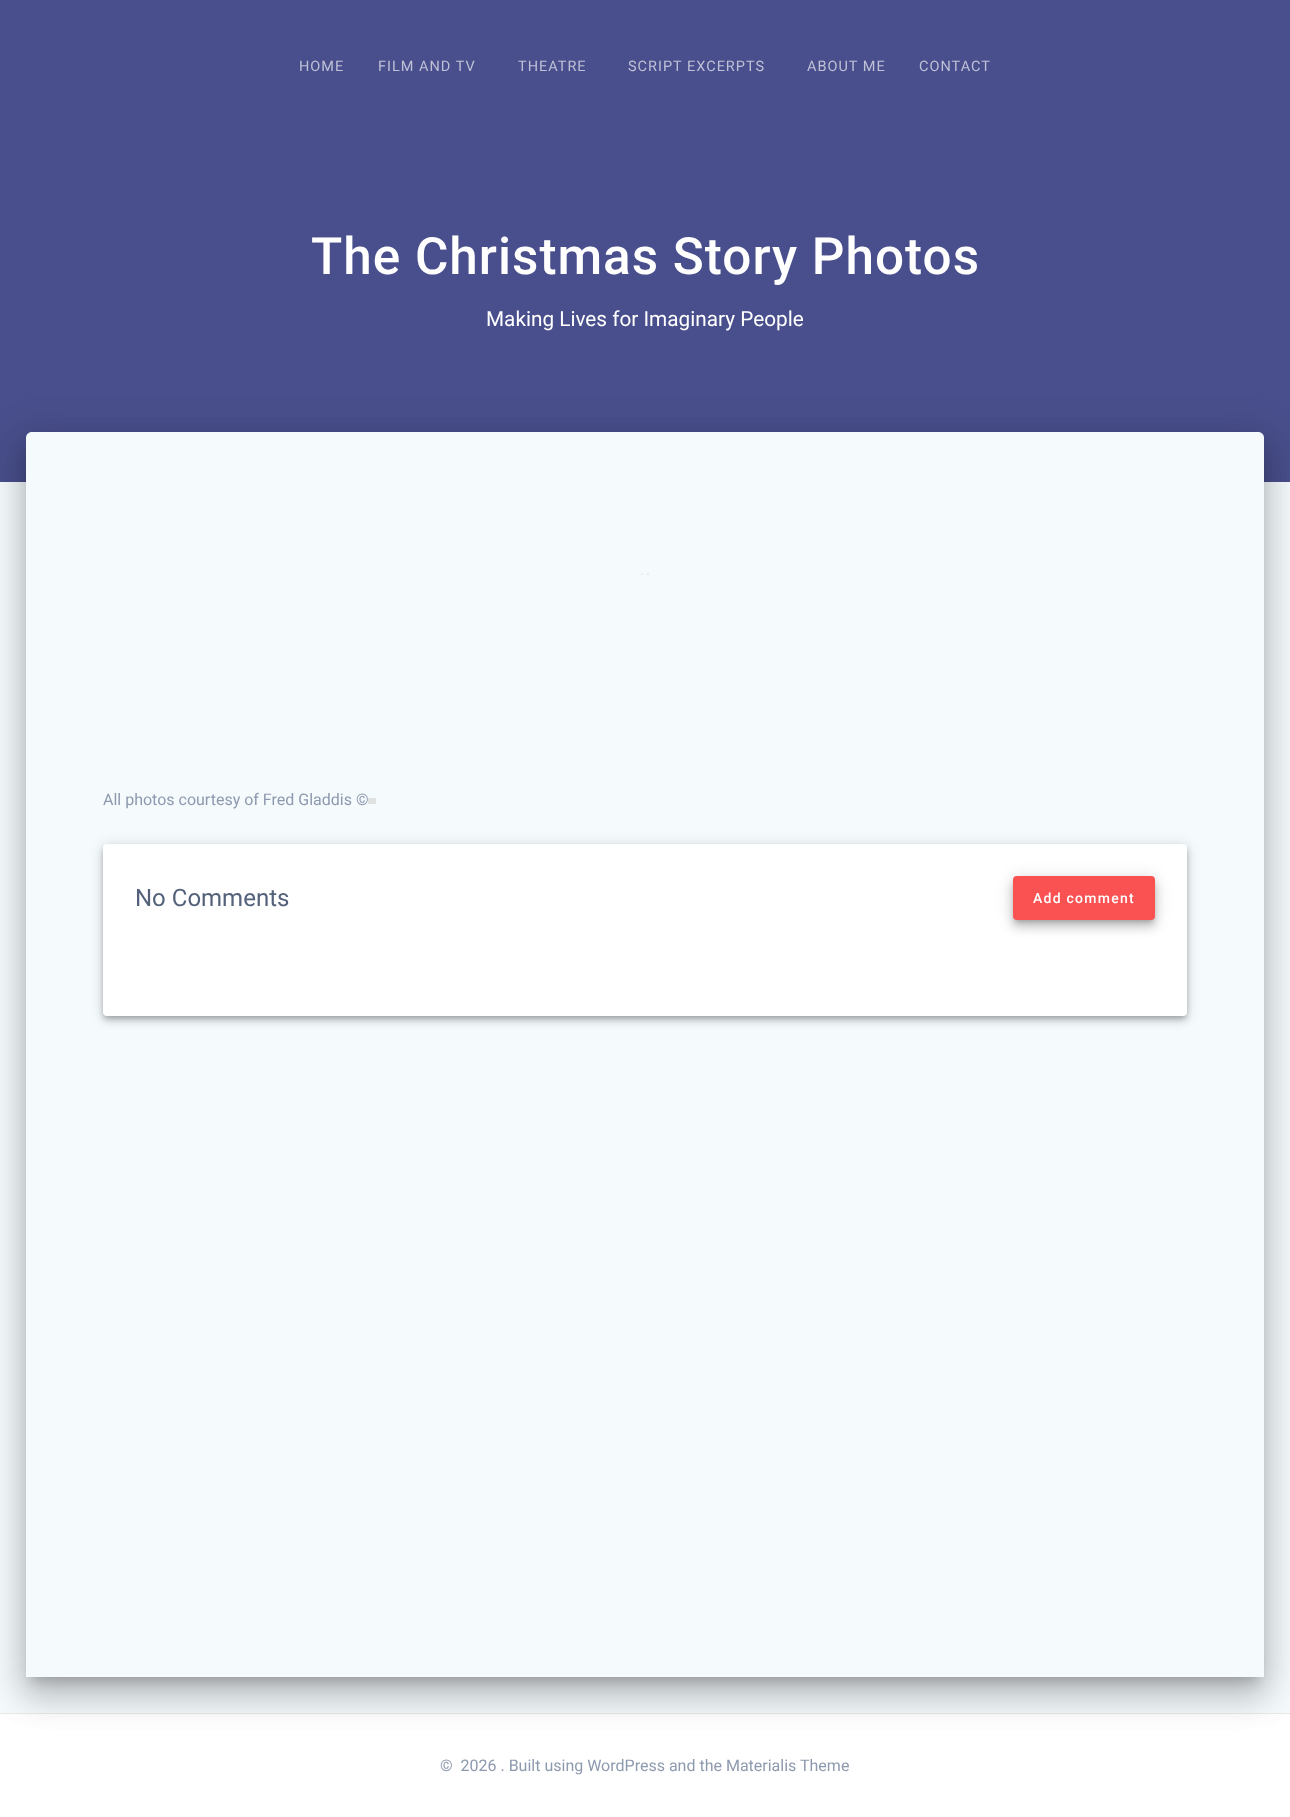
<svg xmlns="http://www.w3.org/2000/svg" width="1290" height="1817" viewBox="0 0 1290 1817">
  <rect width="100%" height="100%" fill="#f5fafd"/>
  <path d="M0 0h1290v482H0z" fill="#494f8c"/>
  <path d="M0 1714h1290v103H0z" fill="#fff"/>
  <path d="M0 1713h1290v1H0z" fill="#e8e8e8"/>
  <rect x="19" y="433" width="1252" height="1259" rx="13" fill="#0000001f" filter="blur(19px)"/>
  <rect x="23" y="449" width="1244" height="1251" rx="9" fill="#00000024" filter="blur(15.5px)"/>
  <path d="M32 448h1226v1233H32z" fill="#00000033" filter="blur(6.5px)"/>
  <path d="M32 432H1258C1261.5 432 1264 434.5 1264 438V1677H26V438C26 434.5 28.5 432 32 432Z" fill="#f5fafd"/>
  <path d="M641 573h2v2H641z" fill="#e9ecee"/>
  <path d="M647 573h2v2H647z" fill="#e9ecee"/>
  <path d="M368 798h8v6H368z" fill="#e0e1e1"/>
  <rect x="103" y="845" width="1084" height="172" rx="4" fill="#0000001f" filter="blur(7px)"/>
  <rect x="103" y="849" width="1084" height="172" rx="4" fill="#00000024" filter="blur(4px)"/>
  <rect x="104" y="848" width="1082" height="170" rx="3" fill="#00000033" filter="blur(2.5px)"/>
  <rect x="103" y="844" width="1084" height="172" rx="4" fill="#fff"/>
  <rect x="1012" y="877" width="144" height="46" rx="5" fill="#0000001f" filter="blur(8px)"/>
  <rect x="1012" y="882" width="144" height="46" rx="5" fill="#00000024" filter="blur(5px)"/>
  <rect x="1015" y="882" width="138" height="40" rx="2" fill="#00000033" filter="blur(2.5px)"/>
  <rect x="1013" y="876" width="142" height="44" rx="4" fill="#fa5252"/>
  <g font-family="Roboto" font-size="14.5" letter-spacing="1" fill="#bfc1d7">
    <text x="299" y="71">HOME</text>
    <text x="378" y="71">FILM AND TV</text>
    <text x="518" y="71">THEATRE</text>
    <text x="628" y="71">SCRIPT EXCERPTS</text>
    <text x="807" y="71">ABOUT ME</text>
    <text x="919" y="71">CONTACT</text>
  </g>
  <text x="311" y="274" font-family="Roboto" font-size="51.25" font-weight="500" letter-spacing="1" fill="#fff">The Christmas Story Photos</text>
  <text x="486" y="326" font-family="Roboto" font-size="20.75" fill="#fff">Making Lives for Imaginary People</text>
  <text x="103" y="805" font-family="Roboto" font-size="16" fill="#8d99ae">All photos courtesy of Fred Gladdis ©</text>
  <text x="135" y="906" font-family="Roboto" font-size="24" fill="#54617a">No Comments</text>
  <text x="1033" y="903" font-family="Roboto" font-size="14" font-weight="500" letter-spacing="1.25" fill="#fff">Add comment</text>
  <text x="440" y="1771" font-family="Roboto" font-size="16" fill="#8d99ae" xml:space="preserve">©  2026 . Built using WordPress and the Materialis Theme</text>
</svg>
